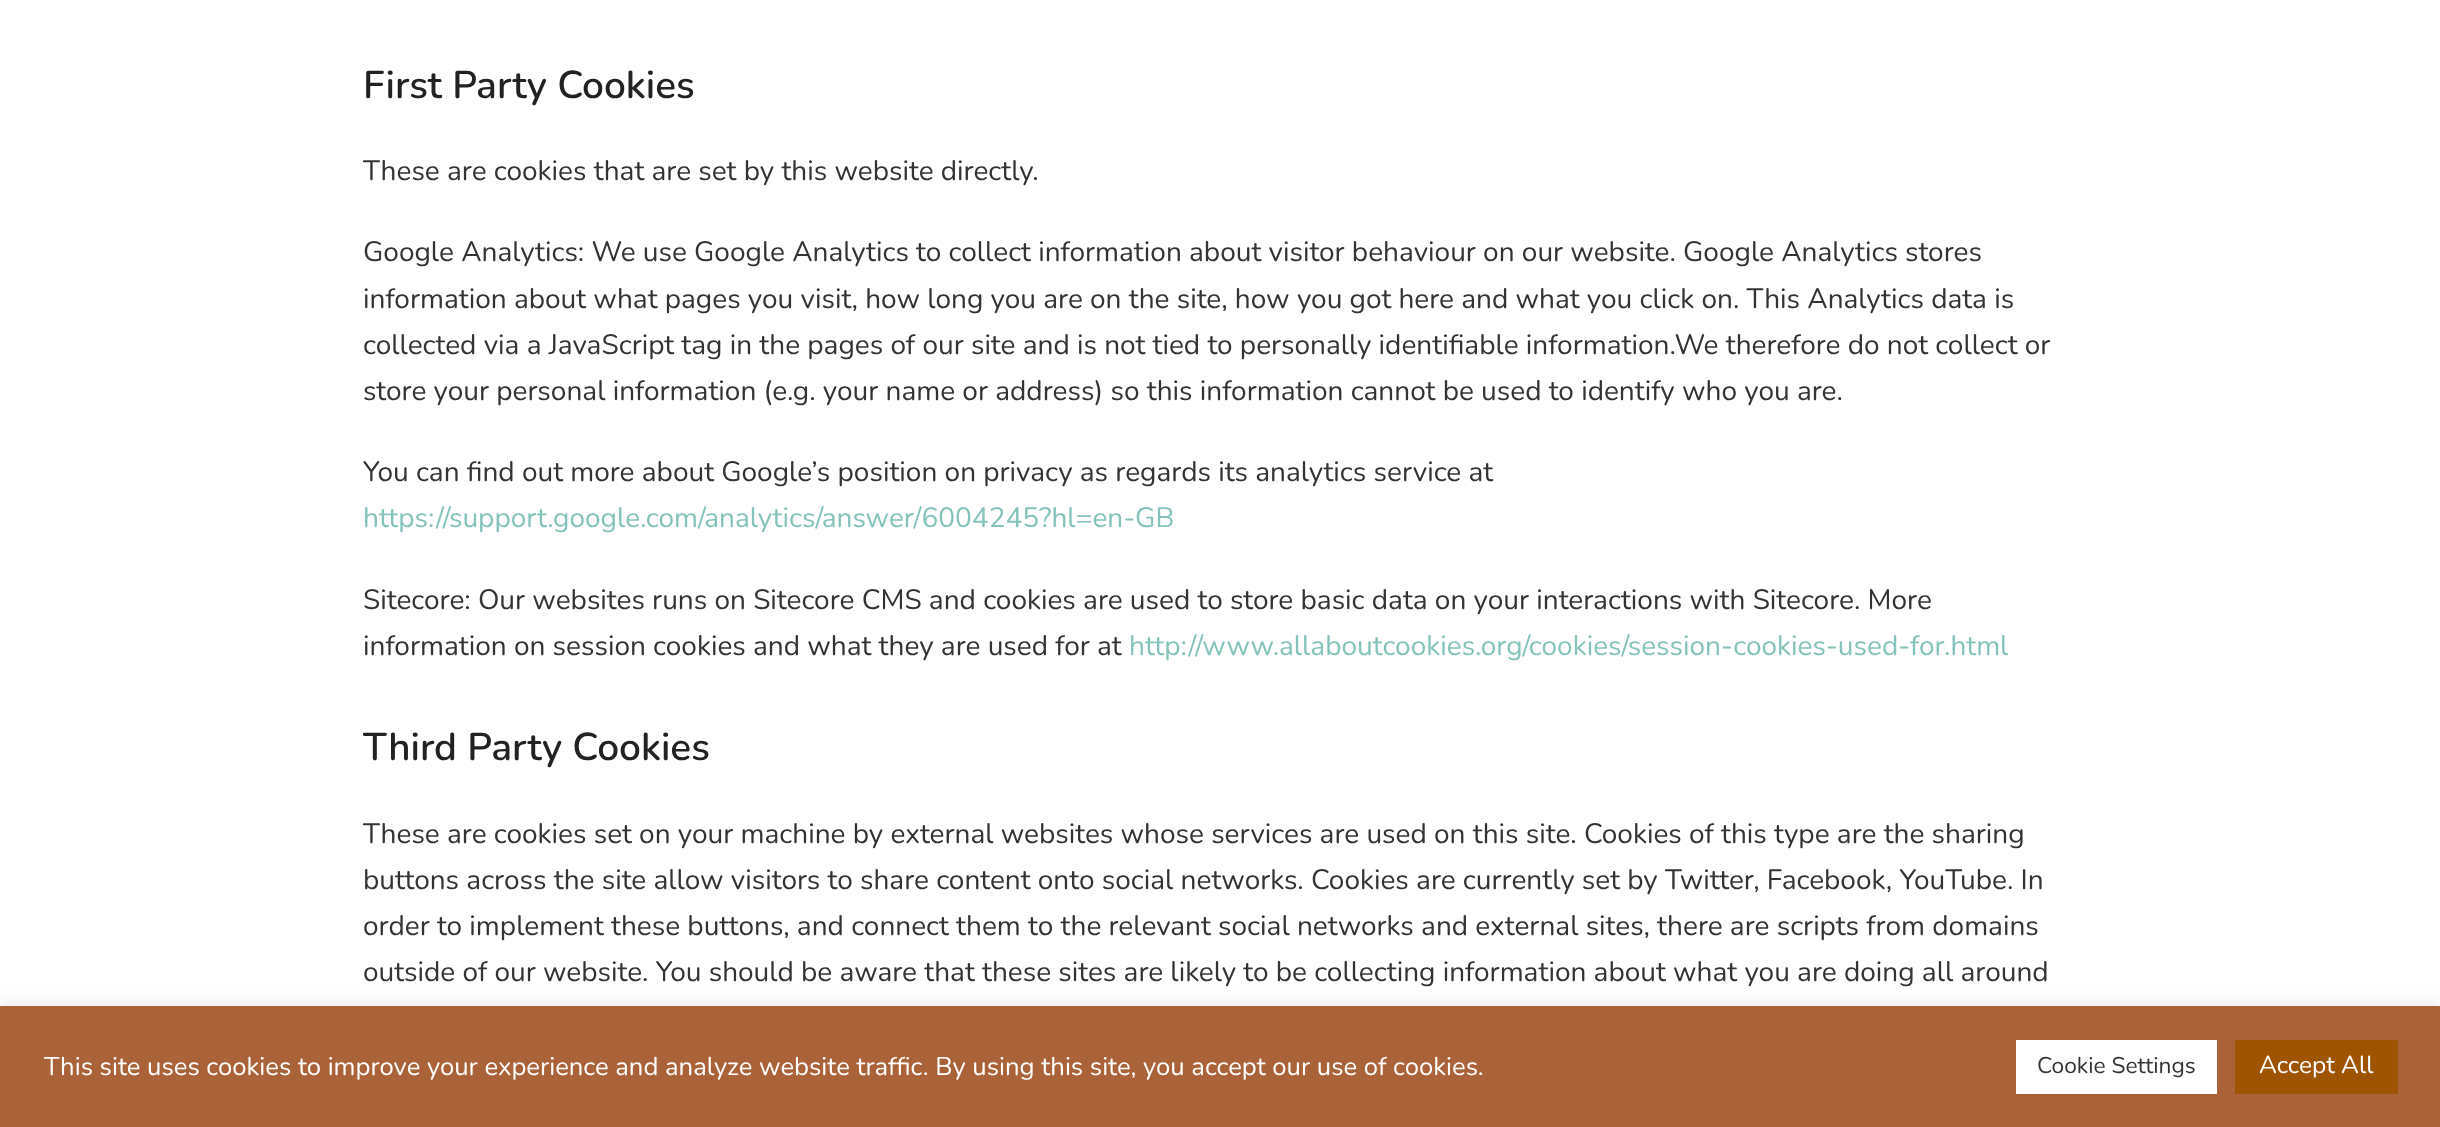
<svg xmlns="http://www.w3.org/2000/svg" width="2440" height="1127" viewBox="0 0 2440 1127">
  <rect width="100%" height="100%" fill="#fff"/>
  <path d="M0 1005h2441v120H0z" fill="#acabab4d" filter="blur(9px)"/>
  <path d="M0 1006h2440v121H0z" fill="#aa6339"/>
  <path d="M2016 1040h201v54H2016z" fill="#fff"/>
  <path d="M2235 1040h163v54H2235z" fill="#9e5400"/>
  <text x="363" y="98" font-family="Nunito" font-size="38.75" font-weight="600" fill="#222">First Party Cookies</text>
  <g font-family="Nunito" font-size="28" fill="#333">
    <text x="363" y="180">These are cookies that are set by this website directly.</text>
    <text x="363" y="261">Google Analytics: We use Google Analytics to collect information about visitor behaviour on our website. Google Analytics stores</text>
    <text x="363" y="308">information about what pages you visit, how long you are on the site, how you got here and what you click on. This Analytics data is</text>
    <text x="363" y="354">collected via a JavaScript tag in the pages of our site and is not tied to personally identifiable information.We therefore do not collect or</text>
    <text x="363" y="400">store your personal information (e.g. your name or address) so this information cannot be used to identify who you are.</text>
    <text x="363" y="481">You can find out more about Google’s position on privacy as regards its analytics service at</text>
  </g>
  <text x="363" y="527" font-family="Nunito" font-size="28" fill="#84c3bb">https://support.google.com/analytics/answer/6004245?hl=en-GB</text>
  <g font-family="Nunito" font-size="28" fill="#333">
    <text x="363" y="609">Sitecore: Our websites runs on Sitecore CMS and cookies are used to store basic data on your interactions with Sitecore. More</text>
    <text x="363" y="655">information on session cookies and what they are used for at</text>
  </g>
  <text x="1129" y="655" font-family="Nunito" font-size="28" fill="#84c3bb">http://www.allaboutcookies.org/cookies/session-cookies-used-for.html</text>
  <text x="363" y="760" font-family="Nunito" font-size="38.75" font-weight="600" fill="#222">Third Party Cookies</text>
  <g font-family="Nunito" font-size="28" fill="#333">
    <text x="363" y="843">These are cookies set on your machine by external websites whose services are used on this site. Cookies of this type are the sharing</text>
    <text x="363" y="889">buttons across the site allow visitors to share content onto social networks. Cookies are currently set by Twitter, Facebook, YouTube. In</text>
    <text x="363" y="935">order to implement these buttons, and connect them to the relevant social networks and external sites, there are scripts from domains</text>
    <text x="363" y="981">outside of our website. You should be aware that these sites are likely to be collecting information about what you are doing all around</text>
  </g>
  <text x="44" y="1075" font-family="Nunito" font-size="25.67" fill="#fff">This site uses cookies to improve your experience and analyze website traffic. By using this site, you accept our use of cookies.</text>
  <text x="2037" y="1073" font-family="Nunito" font-size="22.75" fill="#333">Cookie Settings</text>
  <text x="2259" y="1073" font-family="Nunito" font-size="24.5" fill="#fff">Accept All</text>
</svg>
